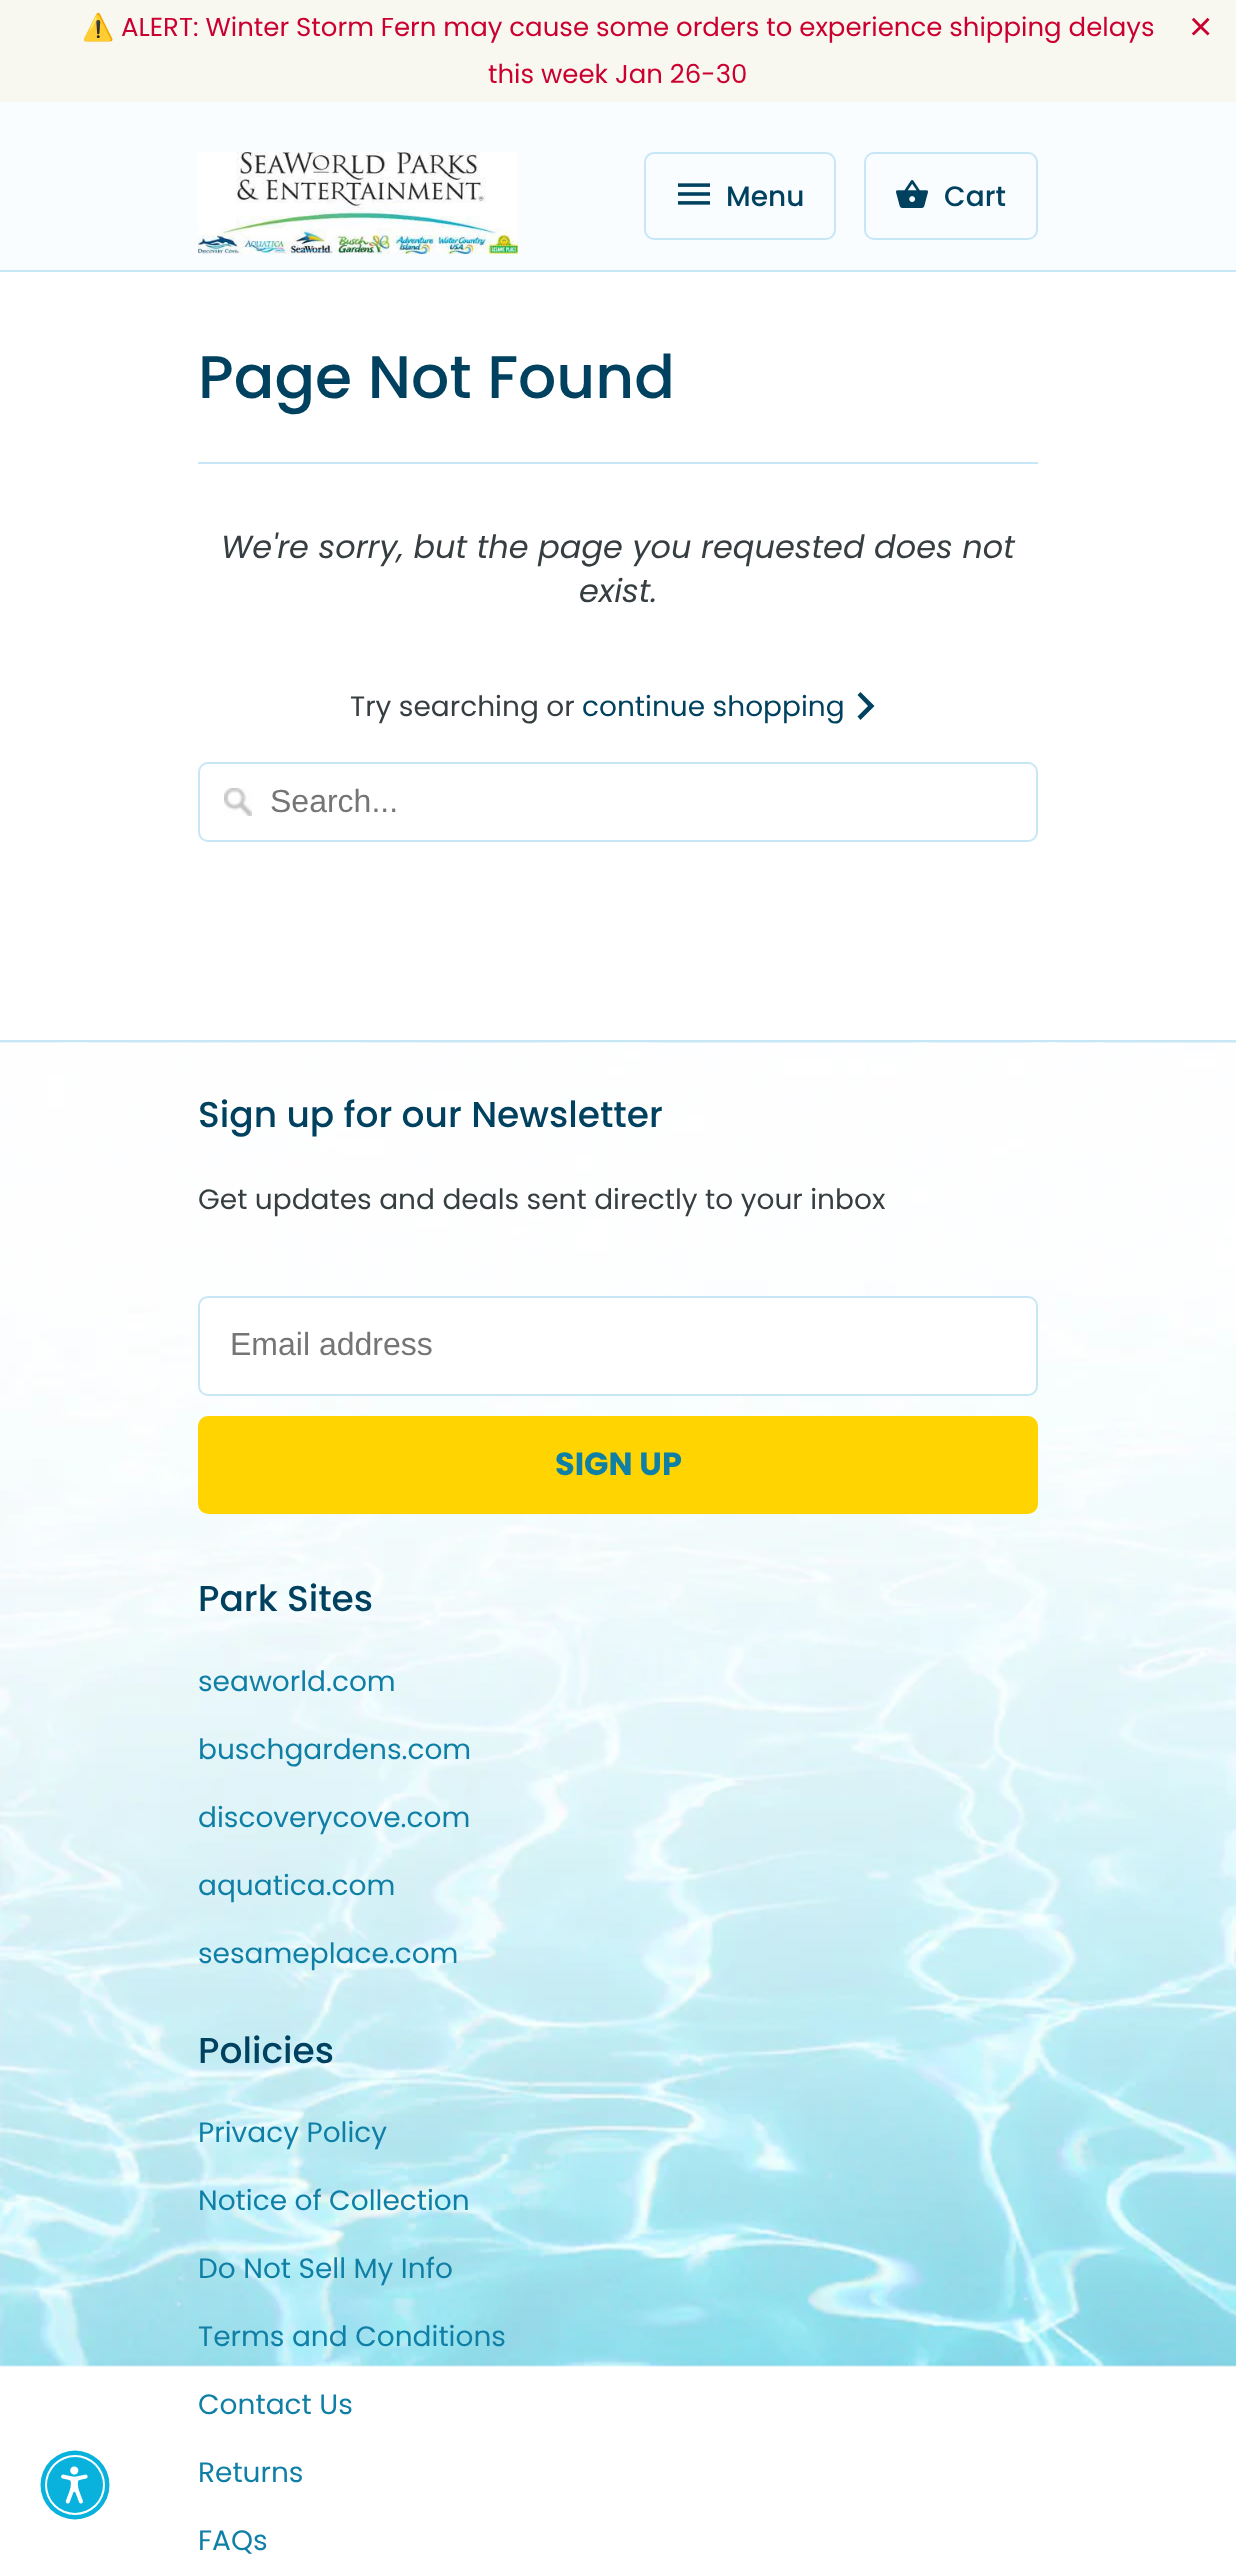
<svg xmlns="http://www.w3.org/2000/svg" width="1236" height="2560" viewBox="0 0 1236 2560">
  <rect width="100%" height="100%" fill="#fff"/>
  <path d="M0 0h1236v102H0z" fill="#f9f8f0"/>
  <path d="M0 102h1236v168H0z" fill="#f9fdff"/>
  <path d="M0 270h1236v2H0z" fill="#c7e7f6"/>
  <image x="198" y="152" width="320" height="102" href="img/1.png"/>
  <rect x="645" y="153" width="190" height="86" rx="9" fill="none" stroke="#c7e7f6" stroke-width="2"/>
  <image x="678" y="183" width="32" height="22" href="img/2.png"/>
  <rect x="865" y="153" width="172" height="86" rx="9" fill="none" stroke="#c7e7f6" stroke-width="2"/>
  <image x="896" y="180" width="32" height="28" href="img/3.png"/>
  <path d="M198 462h840v2H198z" fill="#c7e7f6"/>
  <path d="M860.5 692L857.5 695L868 706L857.5 716.5L860.5 720L874.5 706Z" fill="#00415f"/>
  <image x="224" y="788" width="28" height="28" href="img/4.png"/>
  <rect x="199" y="763" width="838" height="78" rx="9" fill="none" stroke="#c7e7f6" stroke-width="2"/>
  <circle cx="75" cy="2485" r="34.5" fill="#08b2dc"/>
  <circle cx="75" cy="2485" r="30" fill="#fff"/>
  <circle cx="75" cy="2485" r="28" fill="#08b2dc"/>
  <image x="61" y="2466" width="27" height="38" href="img/5.png"/>
  <image x="0" y="1042" width="1236" height="1325" href="img/6.png"/>
  <path d="M0 1040h1236v2H0z" fill="#c7e7f6"/>
  <rect x="199" y="1297" width="838" height="98" rx="9" fill="#fff" stroke="#c7e7f6" stroke-width="2"/>
  <rect x="198" y="1416" width="840" height="98" rx="10" fill="#ffd400"/>
  <text x="82" y="36" font-family="Noto Color Emoji" font-size="26" fill="#ca0031">⚠️</text>
  <g font-family="Poppins" font-size="26" fill="#ca0031">
    <text x="121" y="36">ALERT: Winter Storm Fern may cause some orders to experience shipping delays</text>
    <text x="488" y="83">this week Jan 26-30</text>
  </g>
  <text x="1189" y="40" font-family="Liberation Sans" font-size="40" fill="#ca0031">×</text>
  <g font-family="Poppins" font-size="28" font-weight="500" fill="#00415f">
    <text x="726" y="206">Menu</text>
    <text x="944" y="206">Cart</text>
  </g>
  <text x="198" y="398" font-family="Poppins" font-size="60" font-weight="500" fill="#00415f">Page Not Found</text>
  <g font-family="Poppins" font-size="32" font-style="italic" fill="#373e41">
    <text x="221" y="558">We're sorry, but the page you requested does not</text>
    <text x="579" y="602">exist.</text>
  </g>
  <text x="350" y="716" font-family="Poppins" font-size="28" fill="#373e41">Try searching or</text>
  <text x="582" y="716" font-family="Poppins" font-size="28" fill="#00415f">continue shopping</text>
  <text x="270" y="812" font-family="Liberation Sans" font-size="32" fill="#757575">Search...</text>
  <text x="198" y="1127" font-family="Poppins" font-size="36" font-weight="500" fill="#00415f">Sign up for our Newsletter</text>
  <text x="198" y="1209" font-family="Poppins" font-size="28" fill="#373e41">Get updates and deals sent directly to your inbox</text>
  <text x="230" y="1355" font-family="Liberation Sans" font-size="32" fill="#757575">Email address</text>
  <text x="555" y="1475" font-family="Poppins" font-size="32" font-weight="bold" fill="#107fa6">SIGN UP</text>
  <text x="198" y="1611" font-family="Poppins" font-size="36" font-weight="500" fill="#00415f">Park Sites</text>
  <g font-family="Poppins" font-size="28" fill="#107fa6">
    <text x="198" y="1691">seaworld.com</text>
    <text x="198" y="1759">buschgardens.com</text>
    <text x="198" y="1827">discoverycove.com</text>
    <text x="198" y="1895">aquatica.com</text>
    <text x="198" y="1963">sesameplace.com</text>
  </g>
  <text x="198" y="2063" font-family="Poppins" font-size="36" font-weight="500" fill="#00415f">Policies</text>
  <g font-family="Poppins" font-size="28" fill="#107fa6">
    <text x="198" y="2142">Privacy Policy</text>
    <text x="198" y="2210">Notice of Collection</text>
    <text x="198" y="2278">Do Not Sell My Info</text>
    <text x="198" y="2346">Terms and Conditions</text>
    <text x="198" y="2414">Contact Us</text>
    <text x="198" y="2482">Returns</text>
    <text x="198" y="2550">FAQs</text>
  </g>
</svg>
